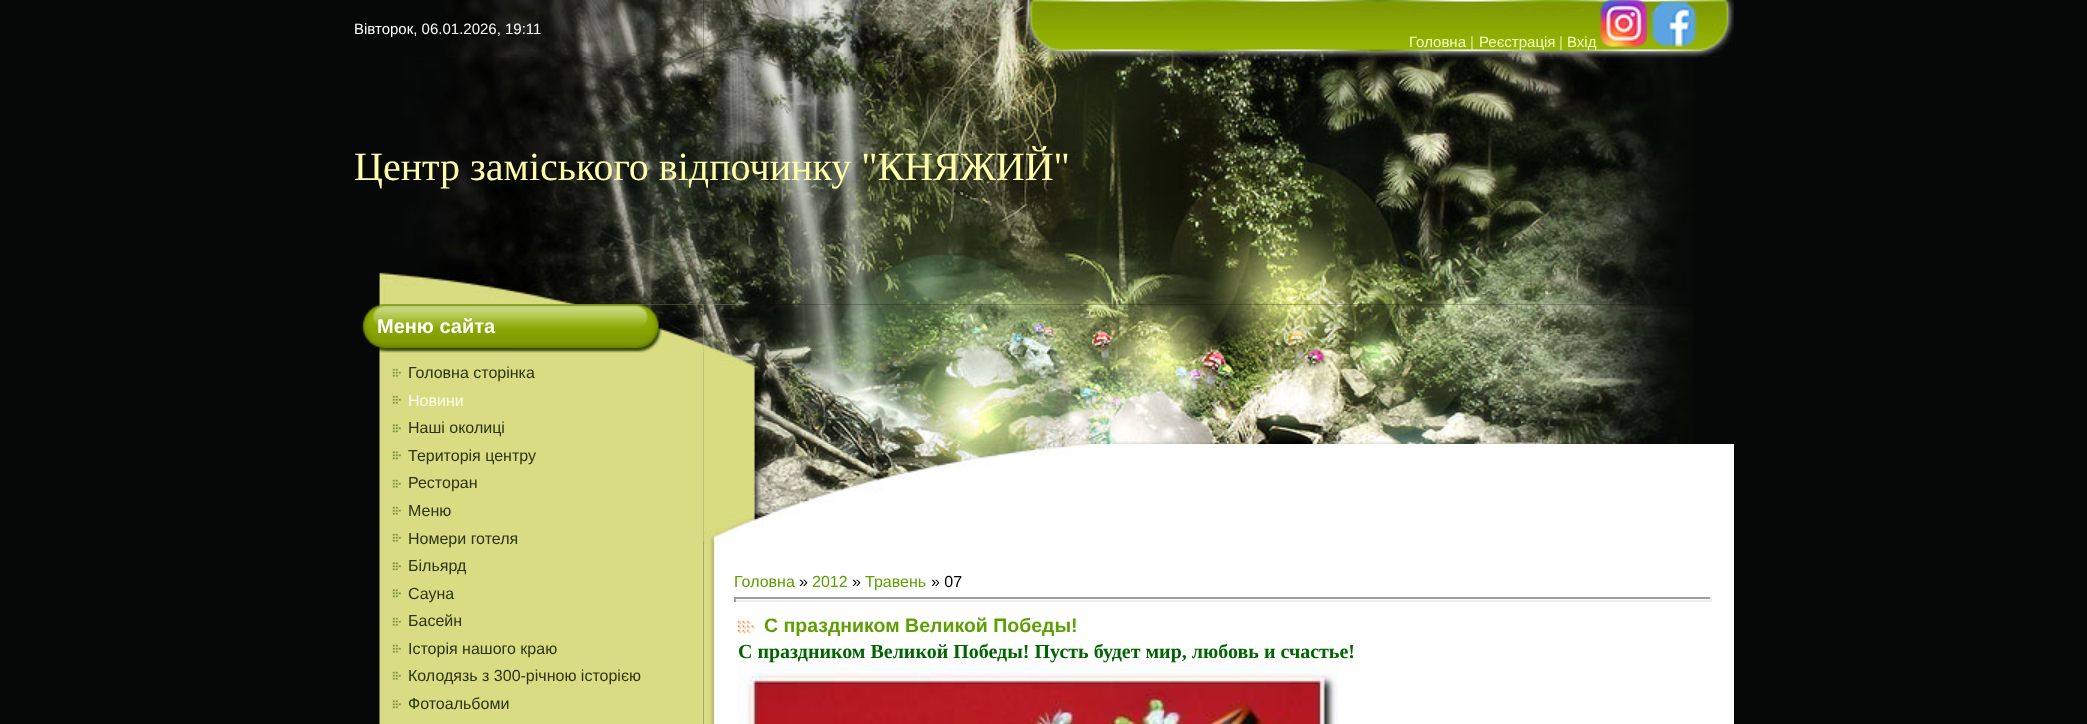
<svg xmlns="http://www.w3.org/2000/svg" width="2087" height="724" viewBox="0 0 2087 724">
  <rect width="100%" height="100%" fill="#060807"/>
  <image x="446" y="0" width="258" height="57" href="img/1.png"/>
  <image x="703" y="0" width="1031" height="57" href="img/2.png"/>
  <image x="1600" y="0" width="47" height="47" href="img/3.png"/>
  <image x="1651" y="1" width="46" height="46" href="img/4.png"/>
  <image x="378" y="57" width="1319" height="248" href="img/5.png"/>
  <image x="354" y="304" width="350" height="420" href="img/6.png"/>
  <image x="362" y="304" width="342" height="49" href="img/7.png"/>
  <image x="392" y="368" width="9" height="9" href="img/8.png"/>
  <image x="392" y="395" width="9" height="9" href="img/8.png"/>
  <image x="392" y="424" width="9" height="9" href="img/9.png"/>
  <image x="392" y="451" width="9" height="9" href="img/9.png"/>
  <image x="392" y="479" width="9" height="9" href="img/8.png"/>
  <image x="392" y="506" width="9" height="9" href="img/8.png"/>
  <image x="392" y="533" width="9" height="9" href="img/8.png"/>
  <image x="392" y="562" width="9" height="9" href="img/9.png"/>
  <image x="392" y="589" width="9" height="9" href="img/9.png"/>
  <image x="392" y="617" width="9" height="9" href="img/8.png"/>
  <image x="392" y="644" width="9" height="9" href="img/8.png"/>
  <image x="392" y="671" width="9" height="9" href="img/8.png"/>
  <image x="392" y="700" width="9" height="9" href="img/9.png"/>
  <path d="M744 444h990v280H744z" fill="#fff"/>
  <image x="703" y="304" width="41" height="420" href="img/10.png"/>
  <image x="703" y="304" width="990" height="140" href="img/11.png"/>
  <image x="703" y="444" width="387" height="98" href="img/12.png"/>
  <path d="M734 597h978v2H734z" fill="#9f9f9f"/>
  <path d="M1710 597h2v5H1710z" fill="#eee"/>
  <path d="M734 600h978v2H734z" fill="#eee"/>
  <path d="M734 597h2v5H734z" fill="#9f9f9f"/>
  <image x="738" y="620" width="17" height="14" href="img/13.png"/>
  <image x="738" y="664" width="600" height="60" href="img/14.png"/>
  <text x="354" y="34" font-family="Liberation Sans" font-size="15" fill="#fff">Вівторок, 06.01.2026, 19:11</text>
  <text x="1409" y="47" font-family="Liberation Sans" font-size="15" fill="#eeffc3">Головна</text>
  <text x="1470" y="47" font-family="Liberation Sans" font-size="15" fill="#d8e7b1">|</text>
  <text x="1479" y="47" font-family="Liberation Sans" font-size="15" fill="#eeffc3">Реєстрація</text>
  <text x="1559" y="47" font-family="Liberation Sans" font-size="15" fill="#d8e7b1">|</text>
  <text x="1567" y="47" font-family="Liberation Sans" font-size="15" fill="#eeffc3">Вхід</text>
  <text x="354" y="180" font-family="Liberation Serif" font-size="40" fill="#ffffab">Центр заміського відпочинку "КНЯЖИЙ"</text>
  <text x="377" y="333" font-family="Liberation Sans" font-size="20" font-weight="bold" fill="#fff">Меню сайта</text>
  <text x="408" y="378" font-family="Liberation Sans" font-size="16" fill="#2b3414">Головна сторінка</text>
  <text x="408" y="406" font-family="Liberation Sans" font-size="16" fill="#f8ffe8">Новини</text>
  <g font-family="Liberation Sans" font-size="16" fill="#2b3414">
    <text x="408" y="433">Наші околиці</text>
    <text x="408" y="461">Територія центру</text>
    <text x="408" y="488">Ресторан</text>
    <text x="408" y="516">Меню</text>
    <text x="408" y="544">Номери готеля</text>
    <text x="408" y="571">Більярд</text>
    <text x="408" y="599">Сауна</text>
    <text x="408" y="626">Басейн</text>
    <text x="408" y="654">Історія нашого краю</text>
    <text x="408" y="681">Колодязь з 300-річною історією</text>
    <text x="408" y="709">Фотоальбоми</text>
  </g>
  <text x="734" y="587" font-family="Liberation Sans" font-size="16" fill="#5c9f00">Головна</text>
  <text x="799" y="587" font-family="Liberation Sans" font-size="16" fill="#000">»</text>
  <text x="812" y="587" font-family="Liberation Sans" font-size="16" fill="#5c9f00">2012</text>
  <text x="852" y="587" font-family="Liberation Sans" font-size="16" fill="#000">»</text>
  <text x="865" y="587" font-family="Liberation Sans" font-size="16" fill="#5c9f00">Травень</text>
  <text x="931" y="587" font-family="Liberation Sans" font-size="16" fill="#000">» 07</text>
  <text x="764" y="632" font-family="Liberation Sans" font-size="19.5" font-weight="bold" fill="#5c9f00">С праздником Великой Победы!</text>
  <text x="738" y="658" font-family="Liberation Serif" font-size="20" font-weight="bold" fill="#006400">С праздником Великой Победы! Пусть будет мир, любовь и счастье!</text>
</svg>
